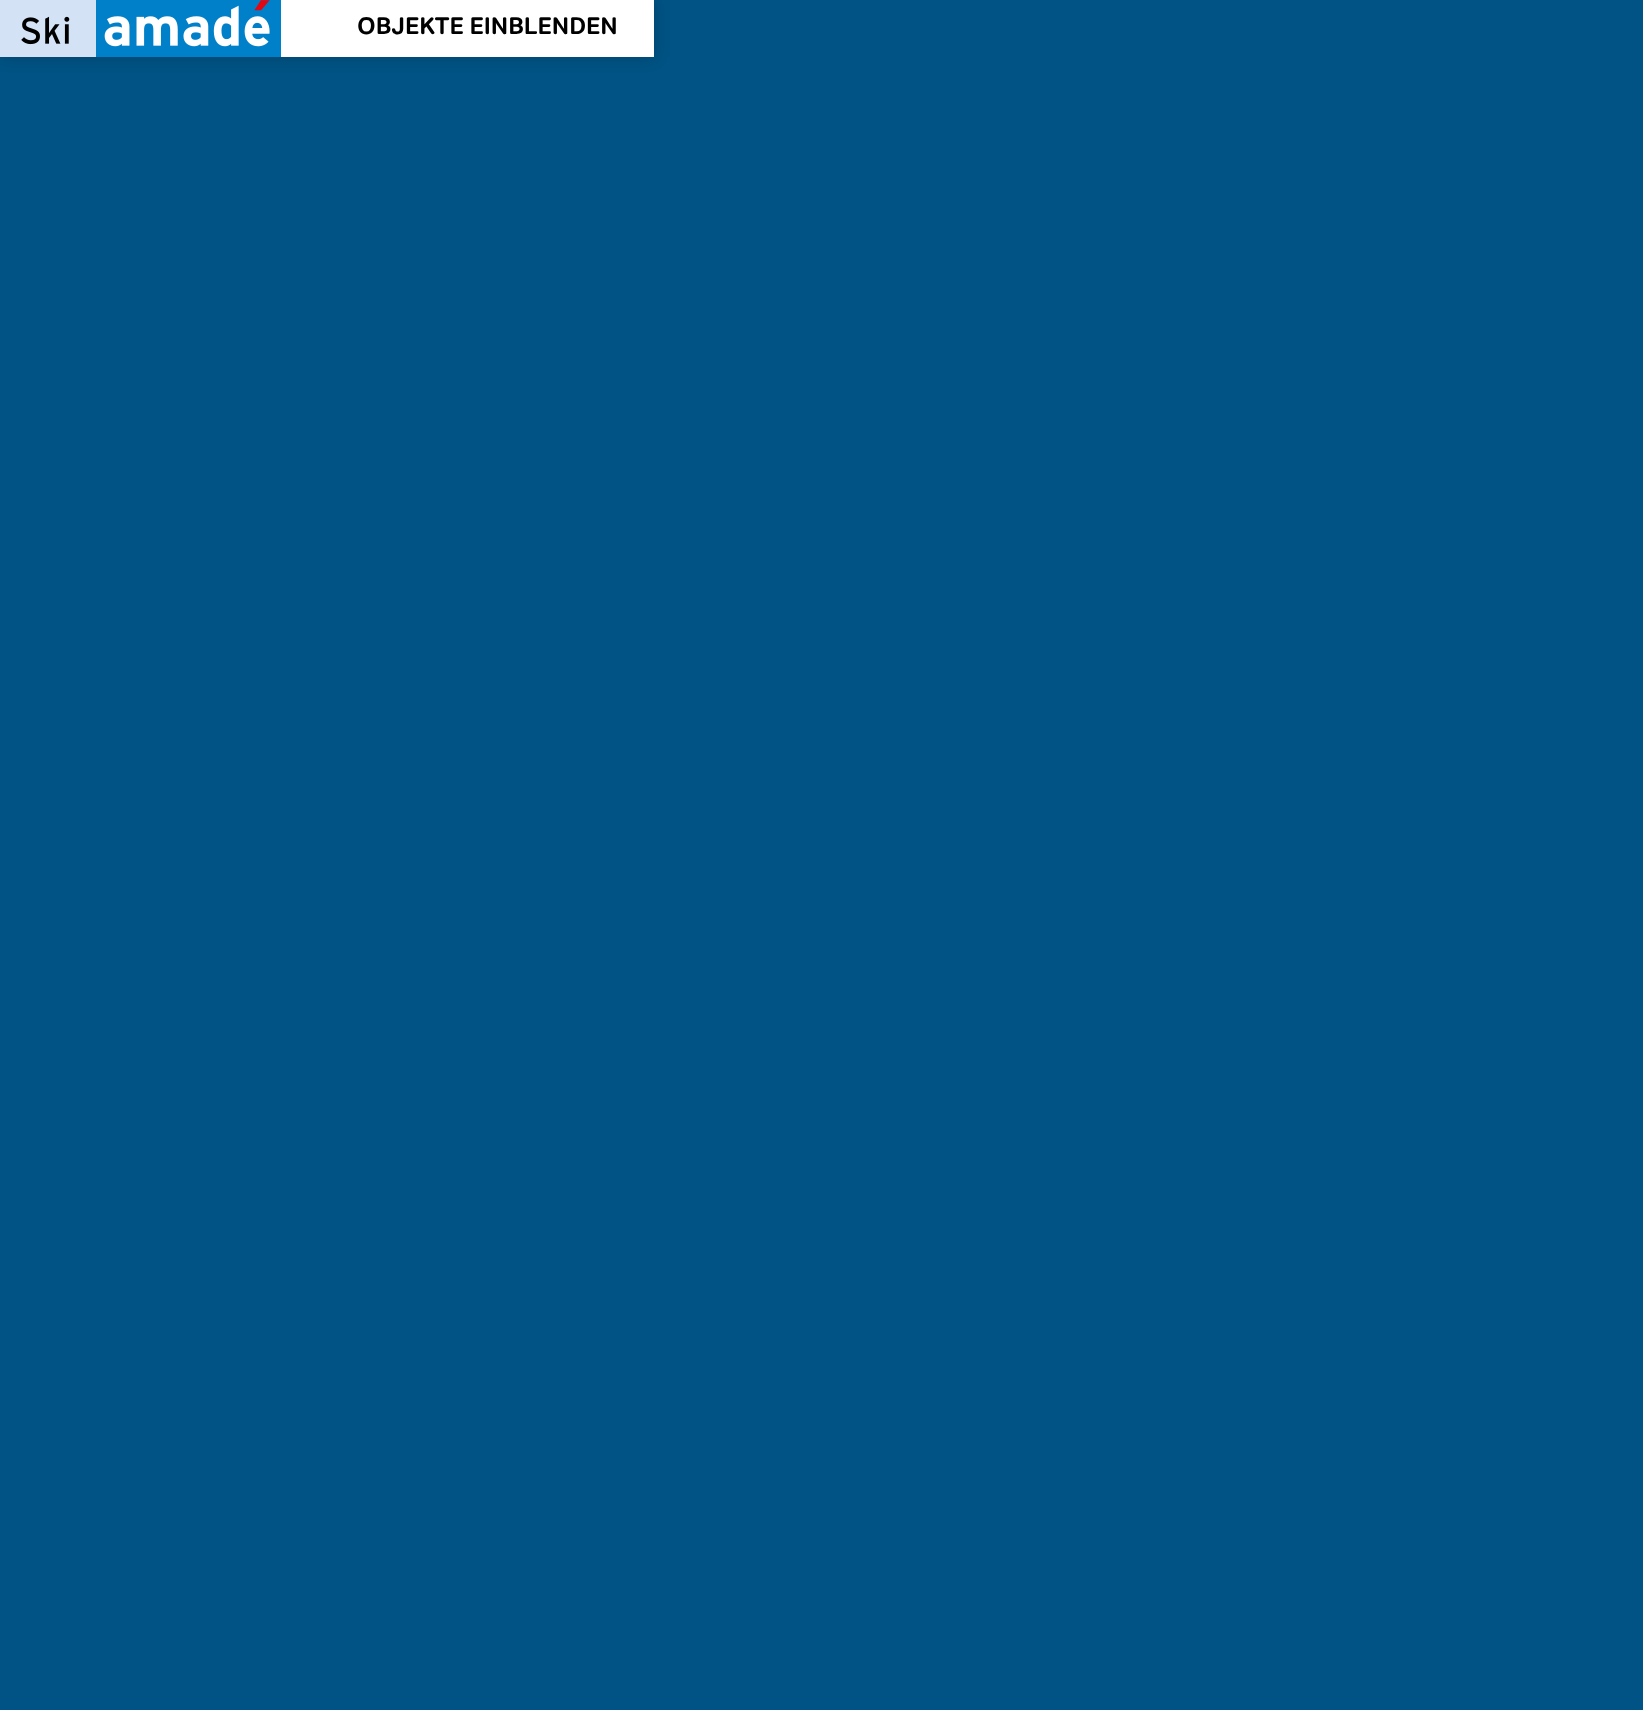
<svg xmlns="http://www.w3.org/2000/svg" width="1643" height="1710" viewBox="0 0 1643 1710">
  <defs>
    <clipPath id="clip1"><path d="M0 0H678V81H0ZM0 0H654V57H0Z" clip-rule="evenodd"/></clipPath>
  </defs>
  <rect width="100%" height="100%" fill="#005384"/>
  <path d="M281 0h373v57H281z" fill="#fff"/>
  <image x="0" y="0" width="281" height="57" href="img/1.png"/>
  <g clip-path="url(#clip1)">
    <path d="M0 0h654v57H0z" fill="#00000033" filter="blur(7.5px)"/>
  </g>
  <text x="357" y="34" font-family="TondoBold" font-size="24" fill="#000">OBJEKTE EINBLENDEN</text>
</svg>
